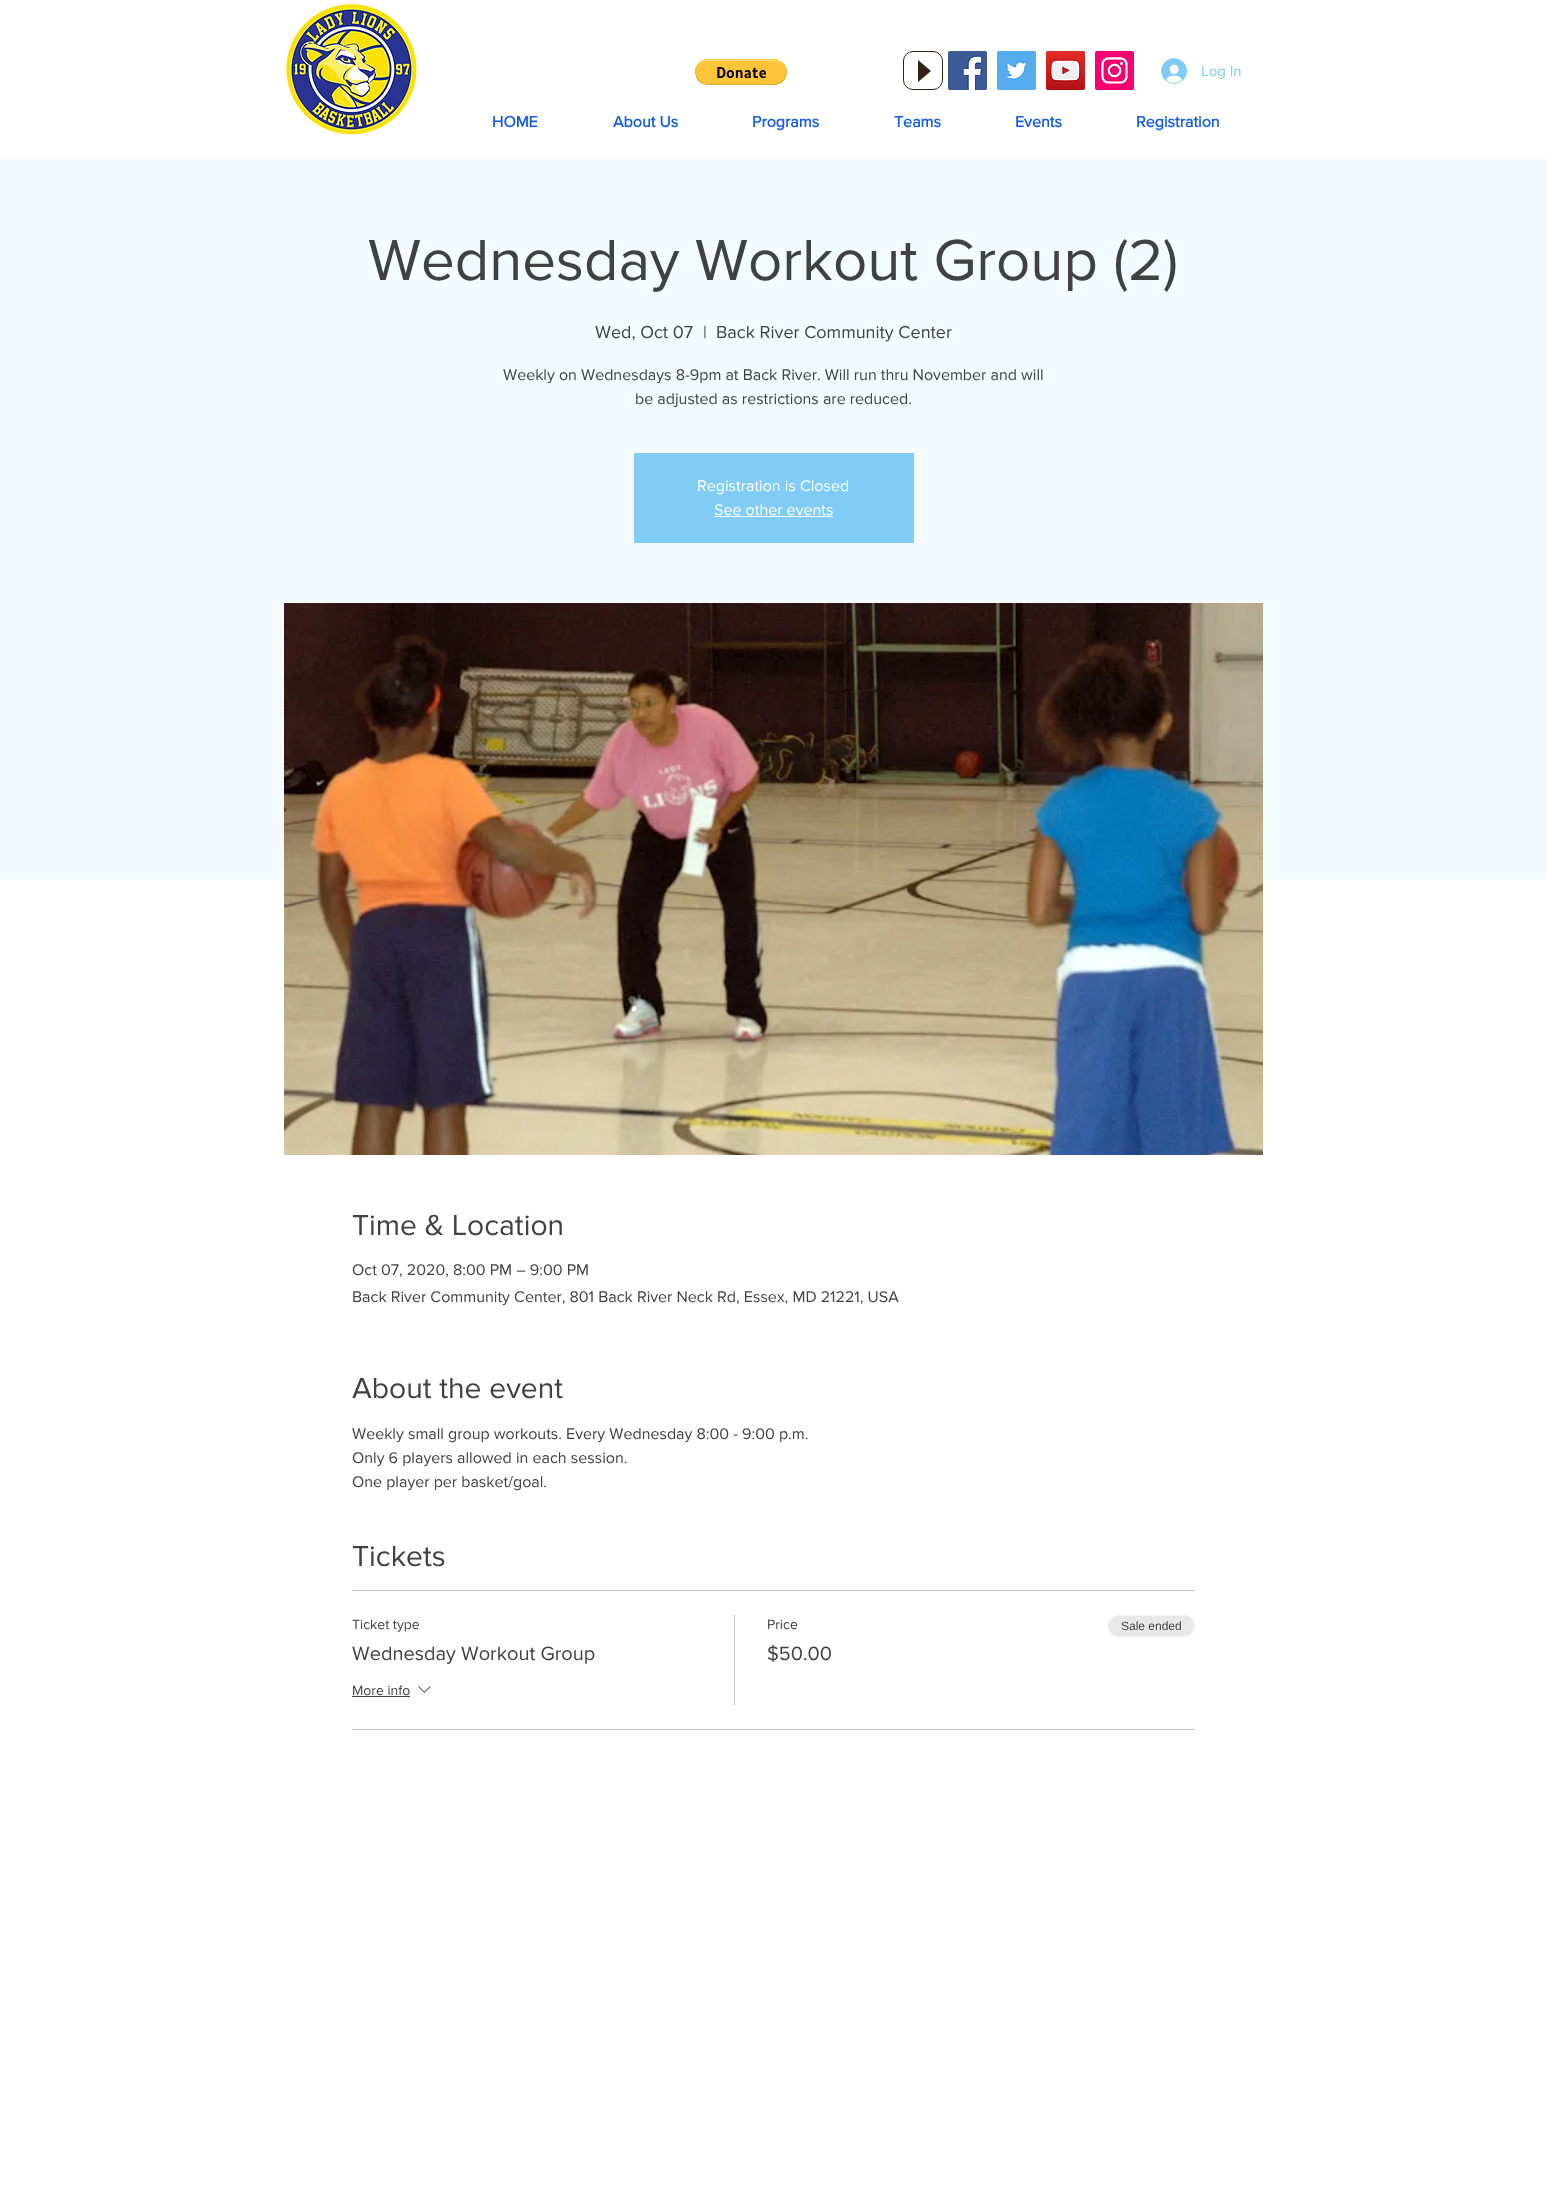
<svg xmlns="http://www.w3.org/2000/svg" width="1547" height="2210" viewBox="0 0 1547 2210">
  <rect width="100%" height="100%" fill="#fff"/>
  <image x="286" y="4" width="131" height="131" href="img/1.png"/>
  <image x="695" y="59" width="92" height="26" href="img/2.png"/>
  <rect x="903.5" y="51.5" width="39" height="38" rx="9.5" fill="none" stroke="#342216"/>
  <path d="M918 82V60L931 71Z" fill="#342216"/>
  <image x="948" y="51" width="39" height="39" href="img/3.png"/>
  <image x="997" y="51" width="39" height="39" href="img/4.png"/>
  <image x="1046" y="51" width="39" height="39" href="img/5.png"/>
  <image x="1095" y="51" width="39" height="39" href="img/6.png"/>
  <image x="1161" y="58" width="26" height="26" href="img/7.png"/>
  <path d="M0 159h1547v720H0z" fill="#f3fbff"/>
  <path d="M634 453h280v90H634z" fill="#7fccf7"/>
  <path d="M714 516h119v1H714z" fill="#fff"/>
  <image x="284" y="603" width="979" height="552" href="img/8.png"/>
  <path d="M352 1590h843v1H352z" fill="#c6c6c6"/>
  <path d="M352 1729h843v1H352z" fill="#c6c6c6"/>
  <path d="M352 1696h58v1H352z" fill="#414141"/>
  <image x="418" y="1686" width="13" height="7" href="img/9.png"/>
  <path d="M734 1615h1v90H734z" fill="#c6c6c6"/>
  <rect x="1108" y="1615" width="87" height="22" rx="11" fill="#e8e8e8"/>
  <rect x="1108.5" y="1615.5" width="86" height="21" rx="10.5" fill="none" stroke="#ffffff66"/>
  <text x="1201" y="76" font-family="'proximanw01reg'" font-size="15" fill="#7fccf7">Log In</text>
  <g font-family="'proximanw01reg'" font-size="16" font-weight="bold" fill="#155de9">
    <text x="492" y="127">HOME</text>
    <text x="613" y="127">About Us</text>
    <text x="752" y="127">Programs</text>
    <text x="894" y="127">Teams</text>
    <text x="1015" y="127">Events</text>
    <text x="1136" y="127">Registration</text>
  </g>
  <text x="368" y="280" font-family="'proximanw01reg'" font-size="60" fill="#414141">Wednesday Workout Group (2)</text>
  <g font-family="'proximanw01reg'" font-size="18" fill="#414141">
    <text x="595" y="338">Wed, Oct 07</text>
    <text x="703" y="338">|</text>
    <text x="716" y="338">Back River Community Center</text>
  </g>
  <g font-family="'proximanw01reg'" font-size="16" fill="#414141">
    <text x="503" y="380">Weekly on Wednesdays 8-9pm at Back River. Will run thru November and will</text>
    <text x="635" y="404">be adjusted as restrictions are reduced.</text>
  </g>
  <g font-family="'proximanw01reg'" font-size="16" fill="#fff">
    <text x="697" y="491">Registration is Closed</text>
    <text x="714" y="515">See other events</text>
  </g>
  <text x="352" y="1235" font-family="'proximanw01reg'" font-size="30" fill="#414141">Time &amp; Location</text>
  <g font-family="'proximanw01reg'" font-size="16" fill="#414141">
    <text x="352" y="1275">Oct 07, 2020, 8:00 PM – 9:00 PM</text>
    <text x="352" y="1302">Back River Community Center, 801 Back River Neck Rd, Essex, MD 21221, USA</text>
  </g>
  <text x="352" y="1398" font-family="'proximanw01reg'" font-size="30" fill="#414141">About the event</text>
  <g font-family="'proximanw01reg'" font-size="16" fill="#414141">
    <text x="352" y="1439">Weekly small group workouts. Every Wednesday 8:00 - 9:00 p.m.</text>
    <text x="352" y="1463">Only 6 players allowed in each session.</text>
    <text x="352" y="1487">One player per basket/goal.</text>
  </g>
  <text x="352" y="1566" font-family="'proximanw01reg'" font-size="30" fill="#414141">Tickets</text>
  <text x="352" y="1629" font-family="'proximanw01reg'" font-size="14" fill="#414141">Ticket type</text>
  <text x="352" y="1660" font-family="'proximanw01reg'" font-size="20" fill="#414141">Wednesday Workout Group</text>
  <g font-family="'proximanw01reg'" font-size="14" fill="#414141">
    <text x="352" y="1695">More info</text>
    <text x="767" y="1629">Price</text>
  </g>
  <text x="767" y="1660" font-family="'proximanw01reg'" font-size="20" fill="#414141">$50.00</text>
  <text x="1121" y="1630" font-family="Liberation Sans" font-size="12" fill="#414141">Sale ended</text>
</svg>
